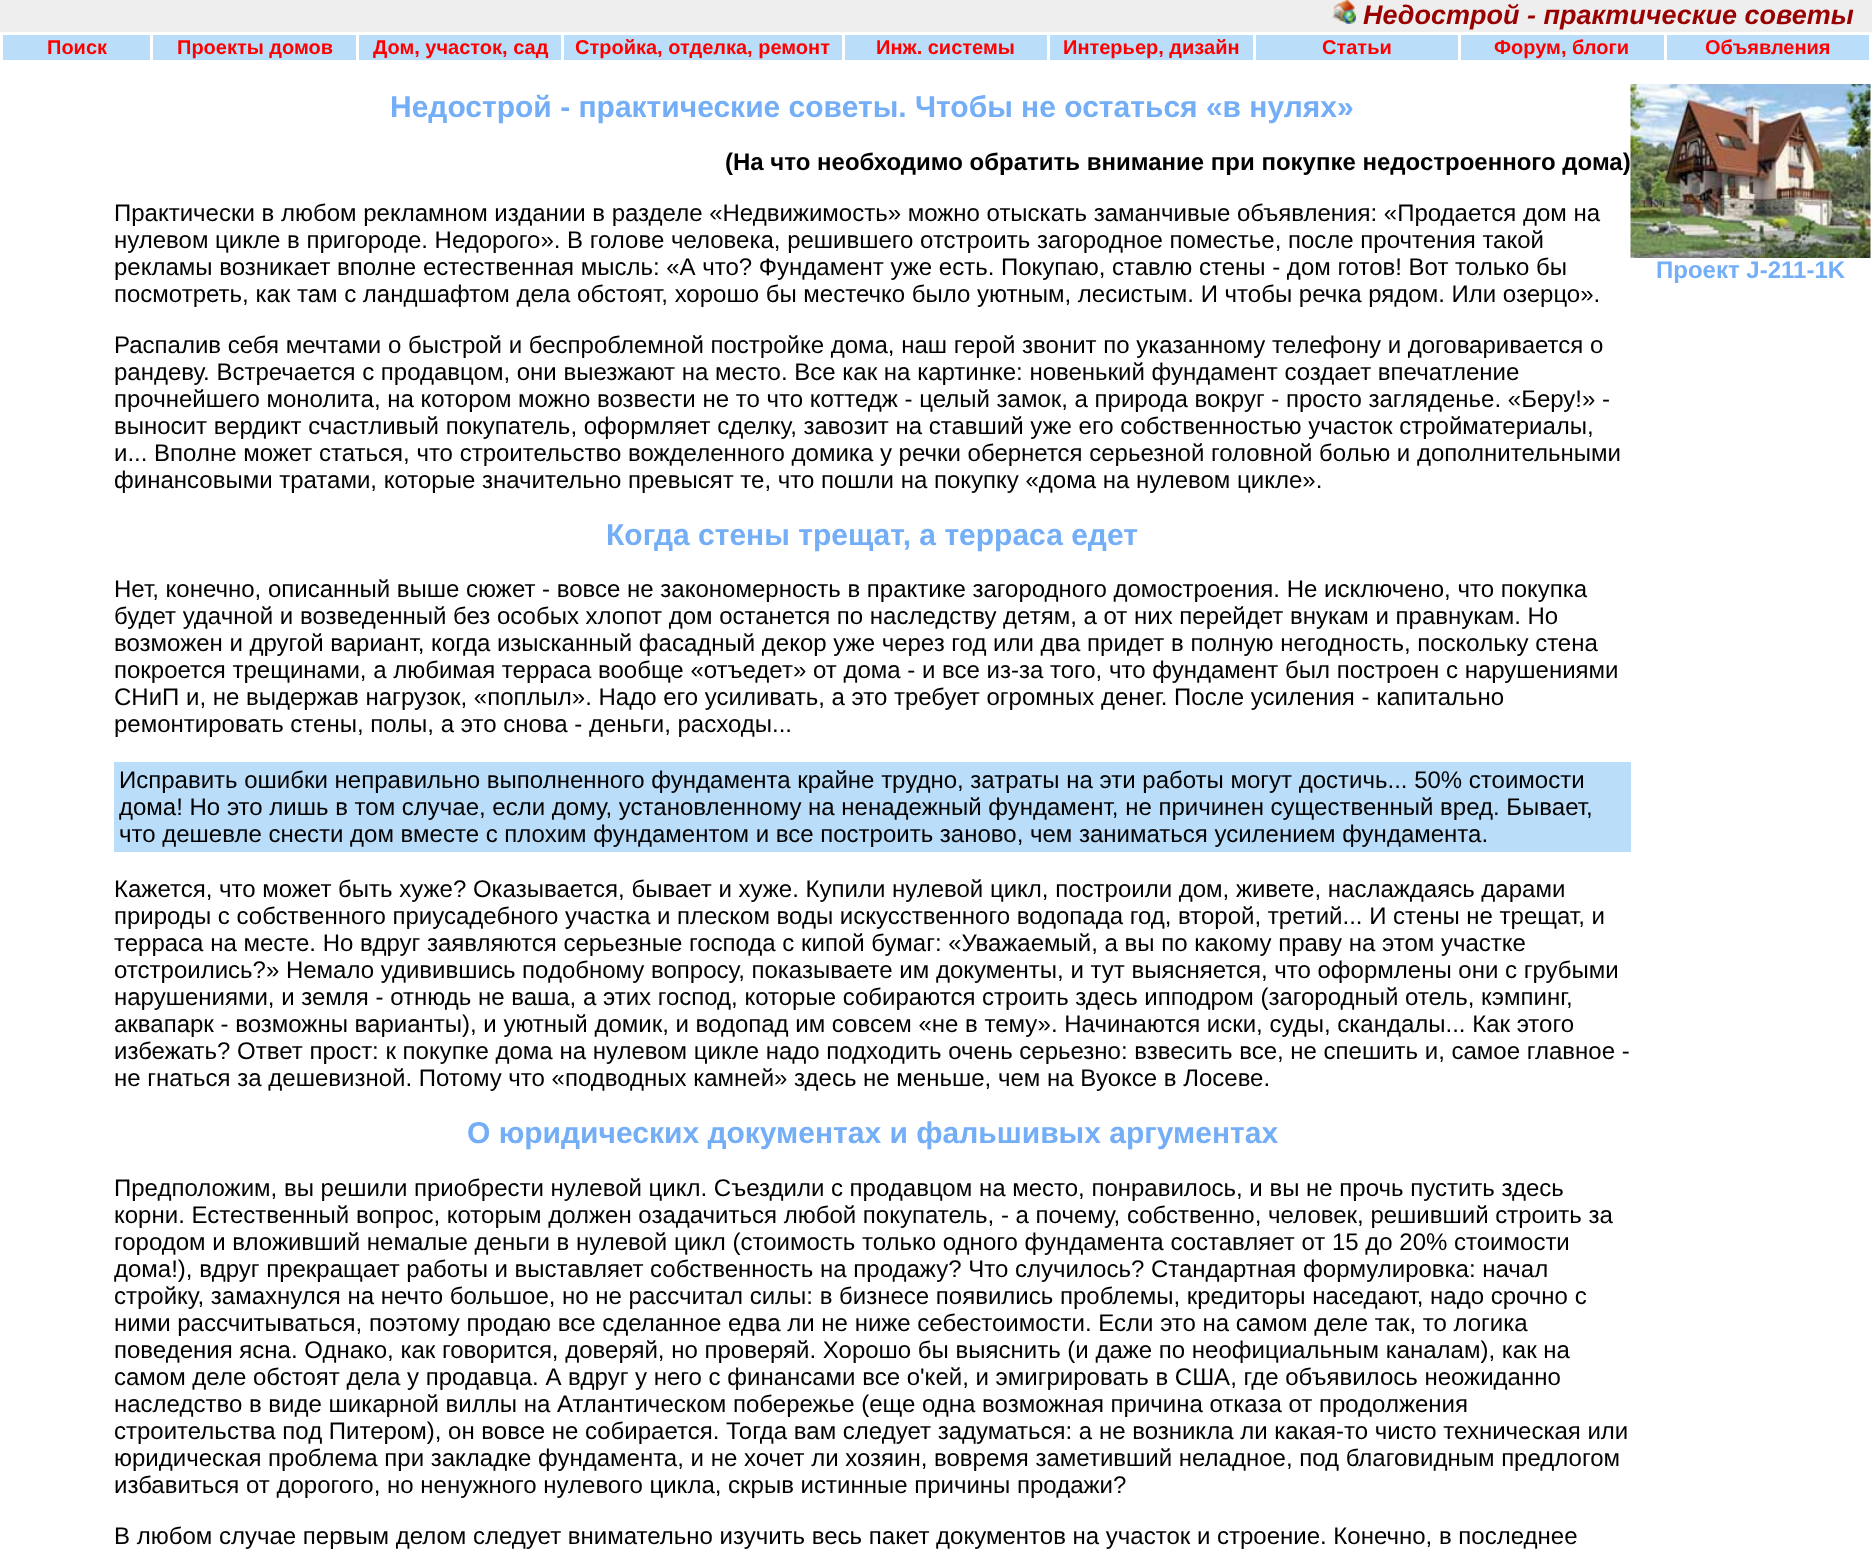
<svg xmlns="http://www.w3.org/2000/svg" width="1872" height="1566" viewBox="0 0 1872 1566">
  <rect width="100%" height="100%" fill="#fff"/>
  <path d="M0 0h1872v32H0z" fill="#eee"/>
  <image x="1332" y="0" width="24" height="24" href="img/1.png"/>
  <path d="M3 35h147v25H3z" fill="#baddf9"/>
  <path d="M153 35h203v25H153z" fill="#baddf9"/>
  <path d="M359 35h202v25H359z" fill="#baddf9"/>
  <path d="M564 35h278v25H564z" fill="#baddf9"/>
  <path d="M845 35h202v25H845z" fill="#baddf9"/>
  <path d="M1050 35h203v25H1050z" fill="#baddf9"/>
  <path d="M1256 35h202v25H1256z" fill="#baddf9"/>
  <path d="M1461 35h203v25H1461z" fill="#baddf9"/>
  <path d="M1667 35h202v25H1667z" fill="#baddf9"/>
  <path d="M114 762h1517v90H114z" fill="#baddf9"/>
  <image x="1630" y="84" width="241" height="174" href="img/2.png"/>
  <text x="1363" y="24" font-family="Liberation Sans" font-size="27" font-weight="bold" font-style="italic" fill="#900">Недострой - практические советы</text>
  <g font-family="Liberation Sans" font-size="20" font-weight="bold" fill="#f00">
    <text x="47" y="54">Поиск</text>
    <text x="177" y="54">Проекты домов</text>
    <text x="373" y="54">Дом, участок, сад</text>
    <text x="575" y="54">Стройка, отделка, ремонт</text>
    <text x="876" y="54">Инж. системы</text>
    <text x="1063" y="54">Интерьер, дизайн</text>
    <text x="1322" y="54">Статьи</text>
    <text x="1494" y="54">Форум, блоги</text>
    <text x="1705" y="54">Объявления</text>
  </g>
  <text x="390" y="117" font-family="Liberation Sans" font-size="30" font-weight="bold" fill="#74aef6">Недострой - практические советы. Чтобы не остаться «в нулях»</text>
  <text x="725" y="170" font-family="Liberation Sans" font-size="24" font-weight="bold" fill="#000">(На что необходимо обратить внимание при покупке недостроенного дома)</text>
  <g font-family="Liberation Sans" font-size="24" fill="#000">
    <text x="114" y="221">Практически в любом рекламном издании в разделе «Недвижимость» можно отыскать заманчивые объявления: «Продается дом на</text>
    <text x="114" y="248">нулевом цикле в пригороде. Недорого». В голове человека, решившего отстроить загородное поместье, после прочтения такой</text>
    <text x="114" y="275">рекламы возникает вполне естественная мысль: «А что? Фундамент уже есть. Покупаю, ставлю стены - дом готов! Вот только бы</text>
    <text x="114" y="302">посмотреть, как там с ландшафтом дела обстоят, хорошо бы местечко было уютным, лесистым. И чтобы речка рядом. Или озерцо».</text>
    <text x="114" y="353">Распалив себя мечтами о быстрой и беспроблемной постройке дома, наш герой звонит по указанному телефону и договаривается о</text>
    <text x="114" y="380">рандеву. Встречается с продавцом, они выезжают на место. Все как на картинке: новенький фундамент создает впечатление</text>
    <text x="114" y="407">прочнейшего монолита, на котором можно возвести не то что коттедж - целый замок, а природа вокруг - просто загляденье. «Беру!» -</text>
    <text x="114" y="434">выносит вердикт счастливый покупатель, оформляет сделку, завозит на ставший уже его собственностью участок стройматериалы,</text>
    <text x="114" y="461">и... Вполне может статься, что строительство вожделенного домика у речки обернется серьезной головной болью и дополнительными</text>
    <text x="114" y="488">финансовыми тратами, которые значительно превысят те, что пошли на покупку «дома на нулевом цикле».</text>
  </g>
  <text x="606" y="545" font-family="Liberation Sans" font-size="30" font-weight="bold" fill="#74aef6">Когда стены трещат, а терраса едет</text>
  <g font-family="Liberation Sans" font-size="24" fill="#000">
    <text x="114" y="597">Нет, конечно, описанный выше сюжет - вовсе не закономерность в практике загородного домостроения. Не исключено, что покупка</text>
    <text x="114" y="624">будет удачной и возведенный без особых хлопот дом останется по наследству детям, а от них перейдет внукам и правнукам. Но</text>
    <text x="114" y="651">возможен и другой вариант, когда изысканный фасадный декор уже через год или два придет в полную негодность, поскольку стена</text>
    <text x="114" y="678">покроется трещинами, а любимая терраса вообще «отъедет» от дома - и все из-за того, что фундамент был построен с нарушениями</text>
    <text x="114" y="705">СНиП и, не выдержав нагрузок, «поплыл». Надо его усиливать, а это требует огромных денег. После усиления - капитально</text>
    <text x="114" y="732">ремонтировать стены, полы, а это снова - деньги, расходы...</text>
    <text x="119" y="788">Исправить ошибки неправильно выполненного фундамента крайне трудно, затраты на эти работы могут достичь... 50% стоимости</text>
    <text x="119" y="815">дома! Но это лишь в том случае, если дому, установленному на ненадежный фундамент, не причинен существенный вред. Бывает,</text>
    <text x="119" y="842">что дешевле снести дом вместе с плохим фундаментом и все построить заново, чем заниматься усилением фундамента.</text>
    <text x="114" y="897">Кажется, что может быть хуже? Оказывается, бывает и хуже. Купили нулевой цикл, построили дом, живете, наслаждаясь дарами</text>
    <text x="114" y="924">природы с собственного приусадебного участка и плеском воды искусственного водопада год, второй, третий... И стены не трещат, и</text>
    <text x="114" y="951">терраса на месте. Но вдруг заявляются серьезные господа с кипой бумаг: «Уважаемый, а вы по какому праву на этом участке</text>
    <text x="114" y="978">отстроились?» Немало удивившись подобному вопросу, показываете им документы, и тут выясняется, что оформлены они с грубыми</text>
    <text x="114" y="1005">нарушениями, и земля - отнюдь не ваша, а этих господ, которые собираются строить здесь ипподром (загородный отель, кэмпинг,</text>
    <text x="114" y="1032">аквапарк - возможны варианты), и уютный домик, и водопад им совсем «не в тему». Начинаются иски, суды, скандалы... Как этого</text>
    <text x="114" y="1059">избежать? Ответ прост: к покупке дома на нулевом цикле надо подходить очень серьезно: взвесить все, не спешить и, самое главное -</text>
    <text x="114" y="1086">не гнаться за дешевизной. Потому что «подводных камней» здесь не меньше, чем на Вуоксе в Лосеве.</text>
  </g>
  <text x="467" y="1143" font-family="Liberation Sans" font-size="30" font-weight="bold" fill="#74aef6">О юридических документах и фальшивых аргументах</text>
  <g font-family="Liberation Sans" font-size="24" fill="#000">
    <text x="114" y="1196">Предположим, вы решили приобрести нулевой цикл. Съездили с продавцом на место, понравилось, и вы не прочь пустить здесь</text>
    <text x="114" y="1223">корни. Естественный вопрос, которым должен озадачиться любой покупатель, - а почему, собственно, человек, решивший строить за</text>
    <text x="114" y="1250">городом и вложивший немалые деньги в нулевой цикл (стоимость только одного фундамента составляет от 15 до 20% стоимости</text>
    <text x="114" y="1277">дома!), вдруг прекращает работы и выставляет собственность на продажу? Что случилось? Стандартная формулировка: начал</text>
    <text x="114" y="1304">стройку, замахнулся на нечто большое, но не рассчитал силы: в бизнесе появились проблемы, кредиторы наседают, надо срочно с</text>
    <text x="114" y="1331">ними рассчитываться, поэтому продаю все сделанное едва ли не ниже себестоимости. Если это на самом деле так, то логика</text>
    <text x="114" y="1358">поведения ясна. Однако, как говорится, доверяй, но проверяй. Хорошо бы выяснить (и даже по неофициальным каналам), как на</text>
    <text x="114" y="1385">самом деле обстоят дела у продавца. А вдруг у него с финансами все о'кей, и эмигрировать в США, где объявилось неожиданно</text>
    <text x="114" y="1412">наследство в виде шикарной виллы на Атлантическом побережье (еще одна возможная причина отказа от продолжения</text>
    <text x="114" y="1439">строительства под Питером), он вовсе не собирается. Тогда вам следует задуматься: а не возникла ли какая-то чисто техническая или</text>
    <text x="114" y="1466">юридическая проблема при закладке фундамента, и не хочет ли хозяин, вовремя заметивший неладное, под благовидным предлогом</text>
    <text x="114" y="1493">избавиться от дорогого, но ненужного нулевого цикла, скрыв истинные причины продажи?</text>
    <text x="114" y="1544">В любом случае первым делом следует внимательно изучить весь пакет документов на участок и строение. Конечно, в последнее</text>
  </g>
  <text x="1656" y="278" font-family="Liberation Sans" font-size="24" font-weight="bold" fill="#74aef6">Проект J-211-1K</text>
</svg>
